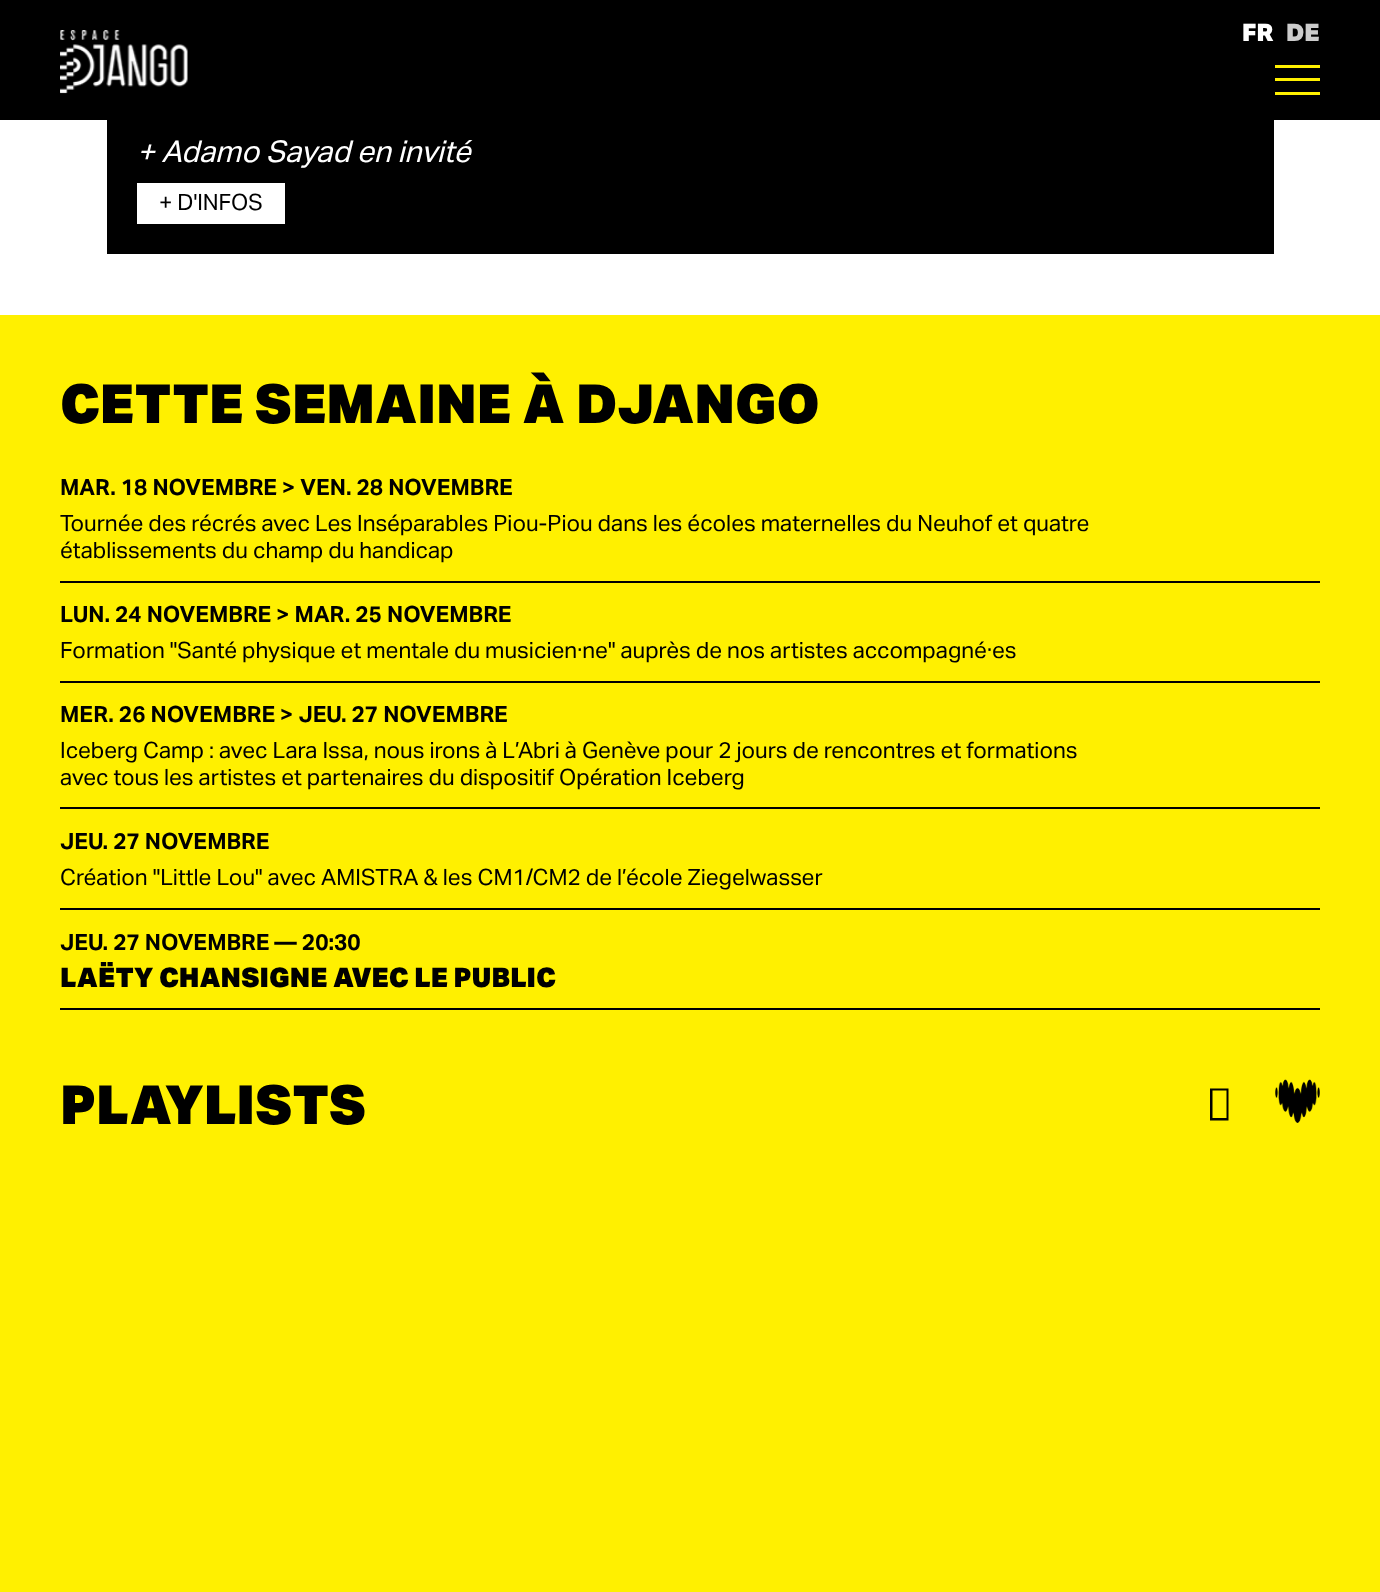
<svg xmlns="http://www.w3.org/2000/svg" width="1380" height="1592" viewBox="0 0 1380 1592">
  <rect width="100%" height="100%" fill="#fff"/>
  <path d="M0 0h1380v120H0z" fill="#000"/>
  <image x="60" y="30" width="128" height="64" href="img/1.png"/>
  <path d="M1275 65h45v3H1275z" fill="#fff000"/>
  <path d="M1275 78h45v3H1275z" fill="#fff000"/>
  <path d="M1275 92h45v3H1275z" fill="#fff000"/>
  <path d="M107 120h1167v134H107z" fill="#000"/>
  <path d="M137 183h148v41H137z" fill="#fff"/>
  <path d="M0 315h1380v1277H0z" fill="#fff000"/>
  <path d="M60 581h1260v2H60z" fill="#000"/>
  <path d="M60 681h1260v2H60z" fill="#000"/>
  <path d="M60 807h1260v2H60z" fill="#000"/>
  <path d="M60 908h1260v2H60z" fill="#000"/>
  <path d="M60 1008h1260v2H60z" fill="#000"/>
  <path d="M1210 1120.5V1088.5H1228.5V1120.5ZM1212.5 1118H1226.5V1090.5H1212.5Z" fill="#000"/>
  <image x="1275" y="1079" width="45" height="44" href="img/2.png"/>
  <text x="1242" y="41" font-family="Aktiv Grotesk" font-size="24" font-weight="900" fill="#fff">FR</text>
  <text x="1286" y="41" font-family="Aktiv Grotesk" font-size="24" font-weight="900" fill="#ccc">DE</text>
  <text x="137" y="162" font-family="Aktiv Grotesk" font-size="30" font-style="italic" fill="#fff">+ Adamo Sayad en invité</text>
  <text x="159" y="210" font-family="Aktiv Grotesk" font-size="22.5" fill="#000">+ D'INFOS</text>
  <text x="60" y="423" font-family="Aktiv Grotesk" font-size="54" font-weight="900" fill="#000">CETTE SEMAINE À DJANGO</text>
  <text x="60" y="495" font-family="Aktiv Grotesk" font-size="22.5" font-weight="bold" fill="#000">MAR. 18 NOVEMBRE &gt; VEN. 28 NOVEMBRE</text>
  <g font-family="Aktiv Grotesk" font-size="22.5" fill="#000">
    <text x="60" y="531">Tournée des récrés avec Les Inséparables Piou-Piou dans les écoles maternelles du Neuhof et quatre</text>
    <text x="60" y="558">établissements du champ du handicap</text>
  </g>
  <text x="60" y="622" font-family="Aktiv Grotesk" font-size="22.5" font-weight="bold" fill="#000">LUN. 24 NOVEMBRE &gt; MAR. 25 NOVEMBRE</text>
  <text x="60" y="658" font-family="Aktiv Grotesk" font-size="22.5" fill="#000">Formation "Santé physique et mentale du musicien·ne" auprès de nos artistes accompagné·es</text>
  <text x="60" y="722" font-family="Aktiv Grotesk" font-size="22.5" font-weight="bold" fill="#000">MER. 26 NOVEMBRE &gt; JEU. 27 NOVEMBRE</text>
  <g font-family="Aktiv Grotesk" font-size="22.5" fill="#000">
    <text x="60" y="758">Iceberg Camp : avec Lara Issa, nous irons à L’Abri à Genève pour 2 jours de rencontres et formations</text>
    <text x="60" y="785">avec tous les artistes et partenaires du dispositif Opération Iceberg</text>
  </g>
  <text x="60" y="849" font-family="Aktiv Grotesk" font-size="22.5" font-weight="bold" fill="#000">JEU. 27 NOVEMBRE</text>
  <text x="60" y="885" font-family="Aktiv Grotesk" font-size="22.5" fill="#000">Création "Little Lou" avec AMISTRA &amp; les CM1/CM2 de l’école Ziegelwasser</text>
  <text x="60" y="950" font-family="Aktiv Grotesk" font-size="22.5" font-weight="bold" fill="#000">JEU. 27 NOVEMBRE — 20:30</text>
  <text x="60" y="987" font-family="Aktiv Grotesk" font-size="27" font-weight="900" fill="#000">LAËTY CHANSIGNE AVEC LE PUBLIC</text>
  <text x="60" y="1124" font-family="Aktiv Grotesk" font-size="54" font-weight="900" fill="#000">PLAYLISTS</text>
</svg>
